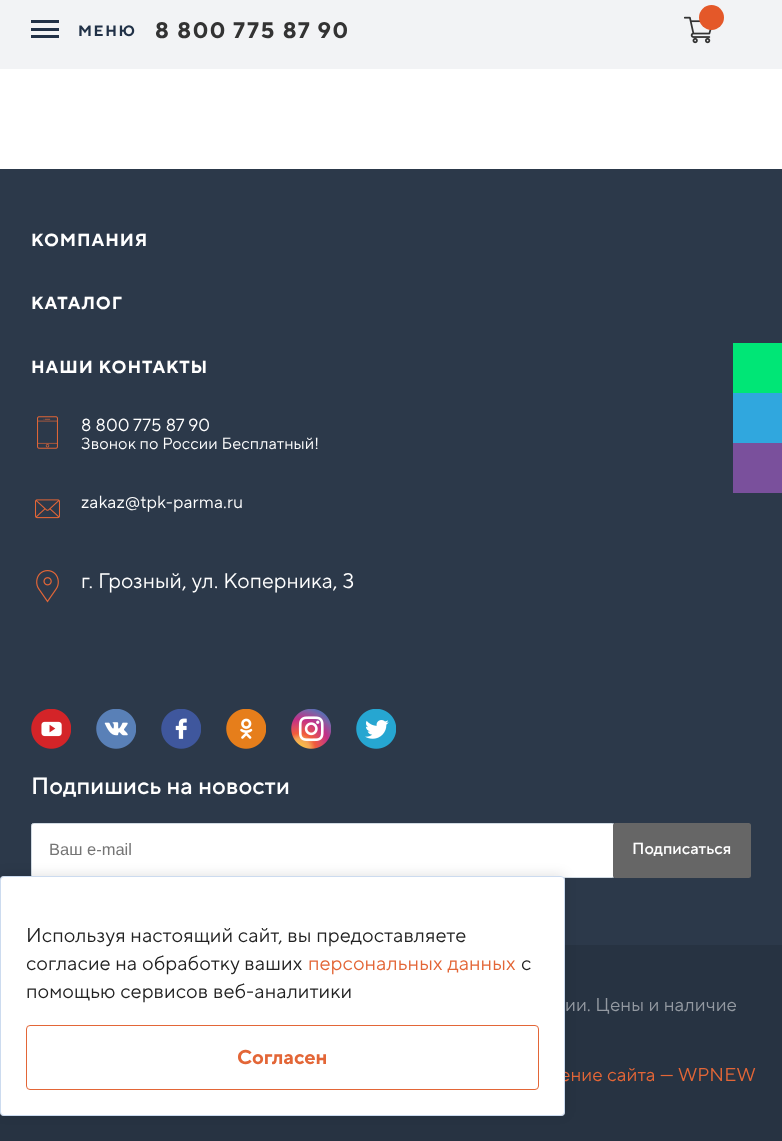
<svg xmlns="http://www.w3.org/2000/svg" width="782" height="1141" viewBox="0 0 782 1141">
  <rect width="100%" height="100%" fill="#fff"/>
  <path d="M0 0h782v69H0z" fill="#f2f3f5"/>
  <path d="M31 20h28v3H31z" fill="#213147"/>
  <path d="M31 28h28v3H31z" fill="#213147"/>
  <path d="M31 35h28v3H31z" fill="#213147"/>
  <image x="684" y="16" width="28" height="28" href="img/1.png"/>
  <circle cx="711.5" cy="17.5" r="12.5" fill="#e45829"/>
  <path d="M0 169h782v776H0z" fill="#2c394a"/>
  <image x="37" y="416" width="21" height="33" href="img/2.png"/>
  <image x="35" y="499" width="25" height="20" href="img/3.png"/>
  <image x="36" y="570" width="23" height="33" href="img/4.png"/>
  <image x="31" y="709" width="40" height="40" href="img/5.png"/>
  <image x="96" y="709" width="40" height="40" href="img/6.png"/>
  <image x="161" y="709" width="40" height="40" href="img/7.png"/>
  <image x="226" y="709" width="40" height="40" href="img/8.png"/>
  <image x="291" y="709" width="40" height="40" href="img/9.png"/>
  <image x="356" y="709" width="40" height="40" href="img/10.png"/>
  <rect x="31.5" y="823.5" width="583" height="54" rx="2" fill="#fff" stroke="#d1dae2"/>
  <rect x="613" y="823" width="138" height="55" rx="2.5" fill="#666"/>
  <path d="M733 343h49v50H733z" fill="#00e676"/>
  <path d="M733 393h49v50H733z" fill="#30a7de"/>
  <path d="M733 443h49v50H733z" fill="#7a509c"/>
  <path d="M0 945h782v196H0z" fill="#273342"/>
  <rect y="874" width="565" height="240" rx="4" fill="#0000001a" filter="blur(6px)"/>
  <text x="78" y="36" font-family="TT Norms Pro" font-size="15" font-weight="bold" letter-spacing="1.6" fill="#213147">МЕНЮ</text>
  <text x="155" y="38" font-family="TT Norms Pro" font-size="22.5" font-weight="bold" letter-spacing="1.6" fill="#333">8 800 775 87 90</text>
  <g font-family="TT Norms Pro" font-size="17.5" font-weight="bold" letter-spacing="0.9" fill="#fff">
    <text x="31" y="246">КОМПАНИЯ</text>
    <text x="31" y="309">КАТАЛОГ</text>
    <text x="31" y="373">НАШИ КОНТАКТЫ</text>
  </g>
  <text x="81" y="431" font-family="TT Norms Pro" font-size="17.5" letter-spacing="0.1" fill="#fff">8 800 775 87 90</text>
  <text x="81" y="449" font-family="TT Norms Pro" font-size="16.25" letter-spacing="0.1" fill="#fff">Звонок по России Бесплатный!</text>
  <text x="81" y="508" font-family="TT Norms Pro" font-size="17.5" letter-spacing="0.1" fill="#fff">zakaz@tpk-parma.ru</text>
  <text x="81" y="588" font-family="TT Norms Pro" font-size="21.25" letter-spacing="0.1" fill="#fff">г. Грозный, ул. Коперника, 3</text>
  <text x="31" y="794" font-family="TT Norms Pro" font-size="23.75" font-weight="500" letter-spacing="0.1" fill="#fff">Подпишись на новости</text>
  <text x="49" y="855" font-family="Liberation Sans" font-size="16.5" fill="#757575">Ваш e-mail</text>
  <text x="632" y="854" font-family="TT Norms Pro" font-size="16.25" font-weight="500" fill="#fff">Подписаться</text>
  <text x="565" y="1011" font-family="TT Norms Pro" font-size="18.75" letter-spacing="0.1" fill="#9399a1">ии. Цены и наличие</text>
  <text x="560" y="1081" font-family="TT Norms Pro" font-size="18.75" letter-spacing="0.1" fill="#e36637">ение сайта — WPNEW</text>
  <rect y="876" width="565" height="240" rx="4" fill="#fff"/>
  <rect x="0.5" y="876.5" width="564" height="239" rx="3.5" fill="none" stroke="#004bb133"/>
  <rect x="26.5" y="1025.5" width="512" height="64" rx="3.5" fill="none" stroke="#e36637"/>
  <text x="237" y="1064" font-family="TT Norms Pro" font-size="20" font-weight="bold" fill="#e36637">Согласен</text>
  <g font-family="TT Norms Pro" font-size="20" letter-spacing="0.1" fill="#222">
    <text x="26" y="998">помощью сервисов веб-аналитики</text>
    <text x="521" y="970">с</text>
  </g>
  <text x="308" y="970" font-family="TT Norms Pro" font-size="20" letter-spacing="0.1" fill="#e36637">персональных данных</text>
  <g font-family="TT Norms Pro" font-size="20" letter-spacing="0.1" fill="#222">
    <text x="26" y="970">согласие на обработку ваших</text>
    <text x="26" y="942">Используя настоящий сайт, вы предоставляете</text>
  </g>
</svg>
